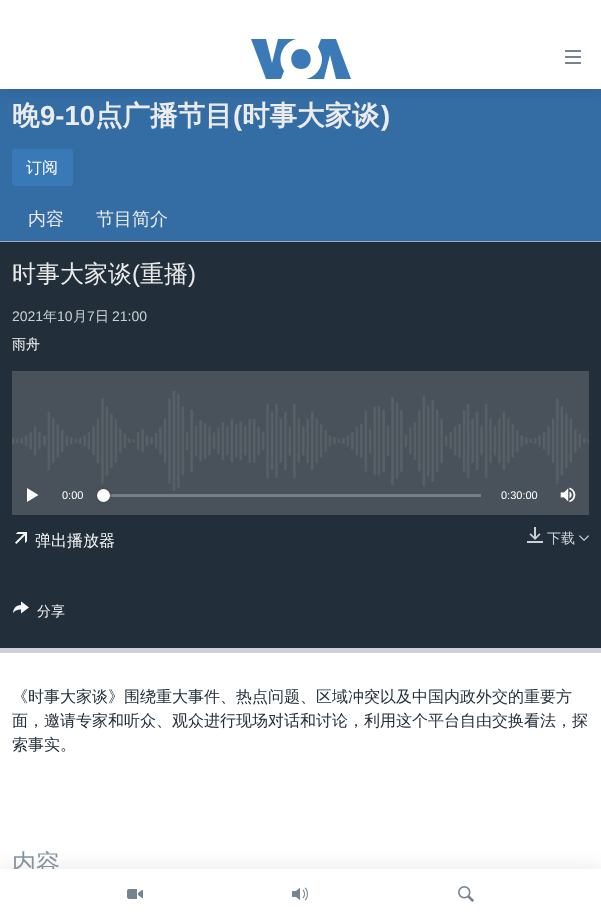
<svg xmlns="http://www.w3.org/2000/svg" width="601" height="919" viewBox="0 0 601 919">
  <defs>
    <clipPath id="clip1"><path d="M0 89h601v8H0z"/></clipPath>
  </defs>
  <rect width="100%" height="100%" fill="#fff"/>
  <path d="M0 89h601v152H0z" fill="#346ca4"/>
  <g clip-path="url(#clip1)">
    <path d="M0 26h601v63H0z" fill="#0000001a" filter="blur(10px)"/>
  </g>
  <path d="M0 13h601v13H0z" fill="#fff"/>
  <path d="M284 71L281 79H266L251 39H266L272 63L278 39H296C282 43 276 59 284 71ZM301 49C288 49 288 69 301 69C314 69 314 49 301 49ZM322 59C322 69 315 77 306 79H324L330 55L336 79H351L336 39H321L318 47C320 51 322 55 322 59Z" fill="#3b79b7"/>
  <image x="565" y="50" width="16" height="14" href="img/1.png"/>
  <path d="M0 869h601v50H0z" fill="#0000001a" filter="blur(10px)"/>
  <rect x="12" y="149" width="61" height="37" rx="3" fill="#3a79b7"/>
  <path d="M0 242h601v406H0z" fill="#222f3a"/>
  <path d="M0 241h601v1H0z" fill="#a1aab4"/>
  <path d="M0 648h601v5H0z" fill="#cbd1d6"/>
  <path d="M12 371h577v144H12z" fill="#49525a"/>
  <image x="12" y="391" width="577" height="100" href="img/5.png"/>
  <path d="M27 502L38.5 495L27 488Z" fill="#fff"/>
  <path d="M103 494h378v3H103z" fill="#777d83"/>
  <rect x="97" y="489" width="13" height="13" rx="6.5" fill="#414144" filter="blur(1.5px)"/>
  <circle cx="103.5" cy="495.5" r="6.5" fill="#fff"/>
  <image x="560" y="487" width="16" height="16" href="img/6.png"/>
  <image x="15" y="532" width="12" height="12" href="img/7.png"/>
  <image x="527" y="527" width="16" height="16" href="img/8.png"/>
  <image x="579" y="535" width="10" height="6" href="img/9.png"/>
  <image x="13" y="601" width="16" height="13" href="img/10.png"/>
  <text x="12" y="125" font-family="WenQuanYi Zen Hei" font-size="27.5" font-weight="bold" fill="#ebebeb">晚</text>
  <text x="40" y="125" font-family="Liberation Sans" font-size="27.5" font-weight="bold" fill="#ebebeb">9-10</text>
  <text x="95" y="125" font-family="WenQuanYi Zen Hei" font-size="27.5" font-weight="bold" fill="#ebebeb">点广播节目</text>
  <text x="233" y="125" font-family="Liberation Sans" font-size="27.5" font-weight="bold" fill="#ebebeb">(</text>
  <text x="242" y="125" font-family="WenQuanYi Zen Hei" font-size="27.5" font-weight="bold" fill="#ebebeb">时事大家谈</text>
  <text x="381" y="125" font-family="Liberation Sans" font-size="27.5" font-weight="bold" fill="#ebebeb">)</text>
  <text x="26" y="173" font-family="WenQuanYi Zen Hei" font-size="16" font-weight="500" fill="#fff">订阅</text>
  <g font-family="WenQuanYi Zen Hei" font-size="18" font-weight="500" fill="#ebebeb">
    <text x="28" y="225">内容</text>
    <text x="96" y="225">节目简介</text>
  </g>
  <text x="12" y="282" font-family="WenQuanYi Zen Hei" font-size="24" font-weight="500" fill="#ebebeb">时事大家谈</text>
  <text x="132" y="282" font-family="Liberation Sans" font-size="24" fill="#ebebeb">(</text>
  <text x="140" y="282" font-family="WenQuanYi Zen Hei" font-size="24" font-weight="500" fill="#ebebeb">重播</text>
  <text x="188" y="282" font-family="Liberation Sans" font-size="24" fill="#ebebeb">)</text>
  <text x="12" y="321" font-family="Liberation Sans" font-size="14" fill="#cbd1d6">2021</text>
  <text x="43" y="321" font-family="WenQuanYi Zen Hei" font-size="14" font-weight="500" fill="#cbd1d6">年</text>
  <text x="57" y="321" font-family="Liberation Sans" font-size="14" fill="#cbd1d6">10</text>
  <text x="73" y="321" font-family="WenQuanYi Zen Hei" font-size="14" font-weight="500" fill="#cbd1d6">月</text>
  <text x="87" y="321" font-family="Liberation Sans" font-size="14" fill="#cbd1d6">7</text>
  <text x="95" y="321" font-family="WenQuanYi Zen Hei" font-size="14" font-weight="500" fill="#cbd1d6">日</text>
  <text x="112" y="321" font-family="Liberation Sans" font-size="14" fill="#cbd1d6">21:00</text>
  <text x="12" y="349" font-family="WenQuanYi Zen Hei" font-size="14" font-weight="500" fill="#f6f7f8">雨舟</text>
  <g font-family="Liberation Sans" font-size="11" fill="#fff">
    <text x="62" y="499">0:00</text>
    <text x="501" y="499">0:30:00</text>
  </g>
  <text x="35" y="546" font-family="WenQuanYi Zen Hei" font-size="16" font-weight="500" fill="#f6f7f8">弹出播放器</text>
  <text x="547" y="543" font-family="WenQuanYi Zen Hei" font-size="14" font-weight="500" fill="#cbd1d6">下载</text>
  <text x="37" y="616" font-family="WenQuanYi Zen Hei" font-size="14" font-weight="500" fill="#f6f7f8">分享</text>
  <g font-family="WenQuanYi Zen Hei" font-size="16" font-weight="500" fill="#222f3a">
    <text x="12" y="702">《时事大家谈》围绕重大事件、热点问题、区域冲突以及中国内政外交的重要方</text>
    <text x="12" y="726">面，邀请专家和听众、观众进行现场对话和讨论，利用这个平台自由交换看法，探</text>
    <text x="12" y="750">索事实。</text>
  </g>
  <text x="12" y="871" font-family="WenQuanYi Zen Hei" font-size="24" font-weight="500" fill="#84919d">内容</text>
  <path d="M0 869h601v50H0z" fill="#fff"/>
  <image x="458" y="886" width="16" height="16" href="img/4.png"/>
  <image x="292" y="887" width="16" height="14" href="img/3.png"/>
  <image x="127" y="889" width="16" height="10" href="img/2.png"/>
</svg>
